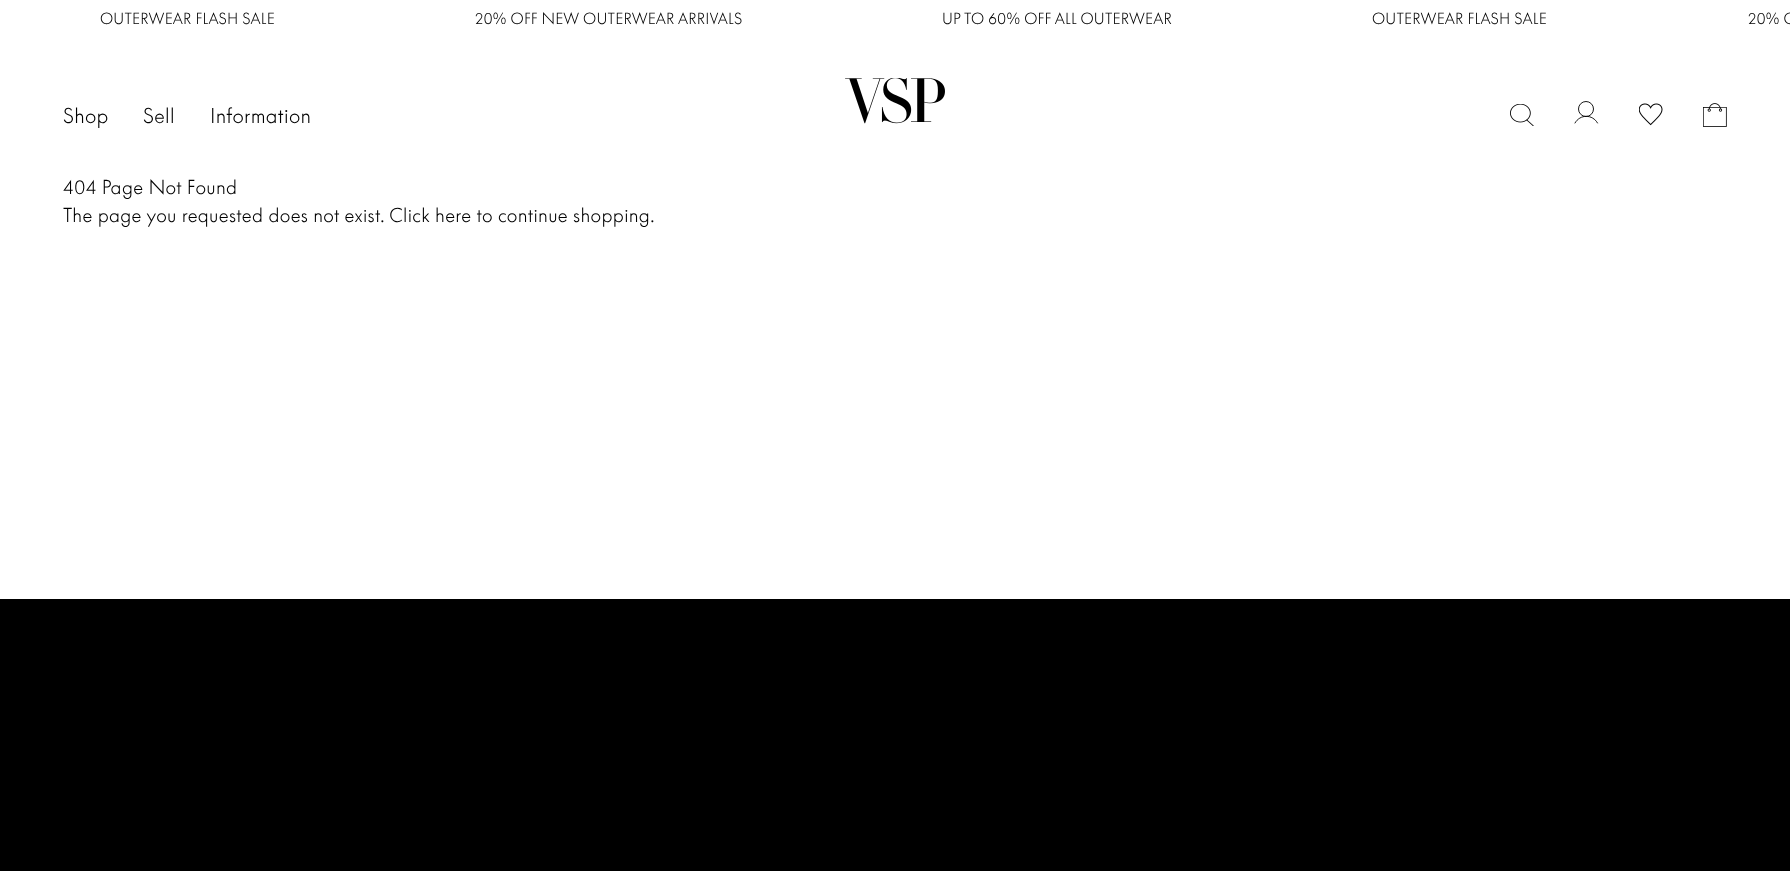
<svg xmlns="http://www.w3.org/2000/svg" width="1790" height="871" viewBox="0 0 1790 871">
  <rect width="100%" height="100%" fill="#fff"/>
  <image x="845" y="78" width="100" height="46" href="img/1.png"/>
  <image x="1510" y="104" width="24" height="22" href="img/2.png"/>
  <circle cx="1586" cy="109" r="7.5" fill="none" stroke="#000" stroke-width="0.9"/>
  <path d="M1575 123C1580 114 1592.5 114 1597.5 123" fill="none" stroke="#000" stroke-width="0.9" stroke-linecap="round" stroke-linejoin="round"/>
  <image x="1639" y="103" width="24" height="23" href="img/3.png"/>
  <image x="1703" y="103" width="24" height="24" href="img/4.png"/>
  <path d="M0 599h1790v272H0z" fill="#000"/>
  <g font-family="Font" font-size="15" font-weight="300" letter-spacing="0.2" fill="#000">
    <text x="100" y="24">OUTERWEAR FLASH SALE</text>
    <text x="475" y="24">20% OFF NEW OUTERWEAR ARRIVALS</text>
    <text x="942" y="24">UP TO 60% OFF ALL OUTERWEAR</text>
    <text x="1372" y="24">OUTERWEAR FLASH SALE</text>
    <text x="1748" y="24">20% O</text>
  </g>
  <g font-family="Font" font-size="20" font-weight="300" letter-spacing="0.33" fill="#000">
    <text x="63" y="123">Shop</text>
    <text x="143" y="123">Sell</text>
    <text x="210" y="123">Information</text>
  </g>
  <g font-family="Font" font-size="18.75" font-weight="300" letter-spacing="0.33" fill="#000">
    <text x="63" y="194">404 Page Not Found</text>
    <text x="63" y="222">The page you requested does not exist. Click here to continue shopping.</text>
  </g>
</svg>
